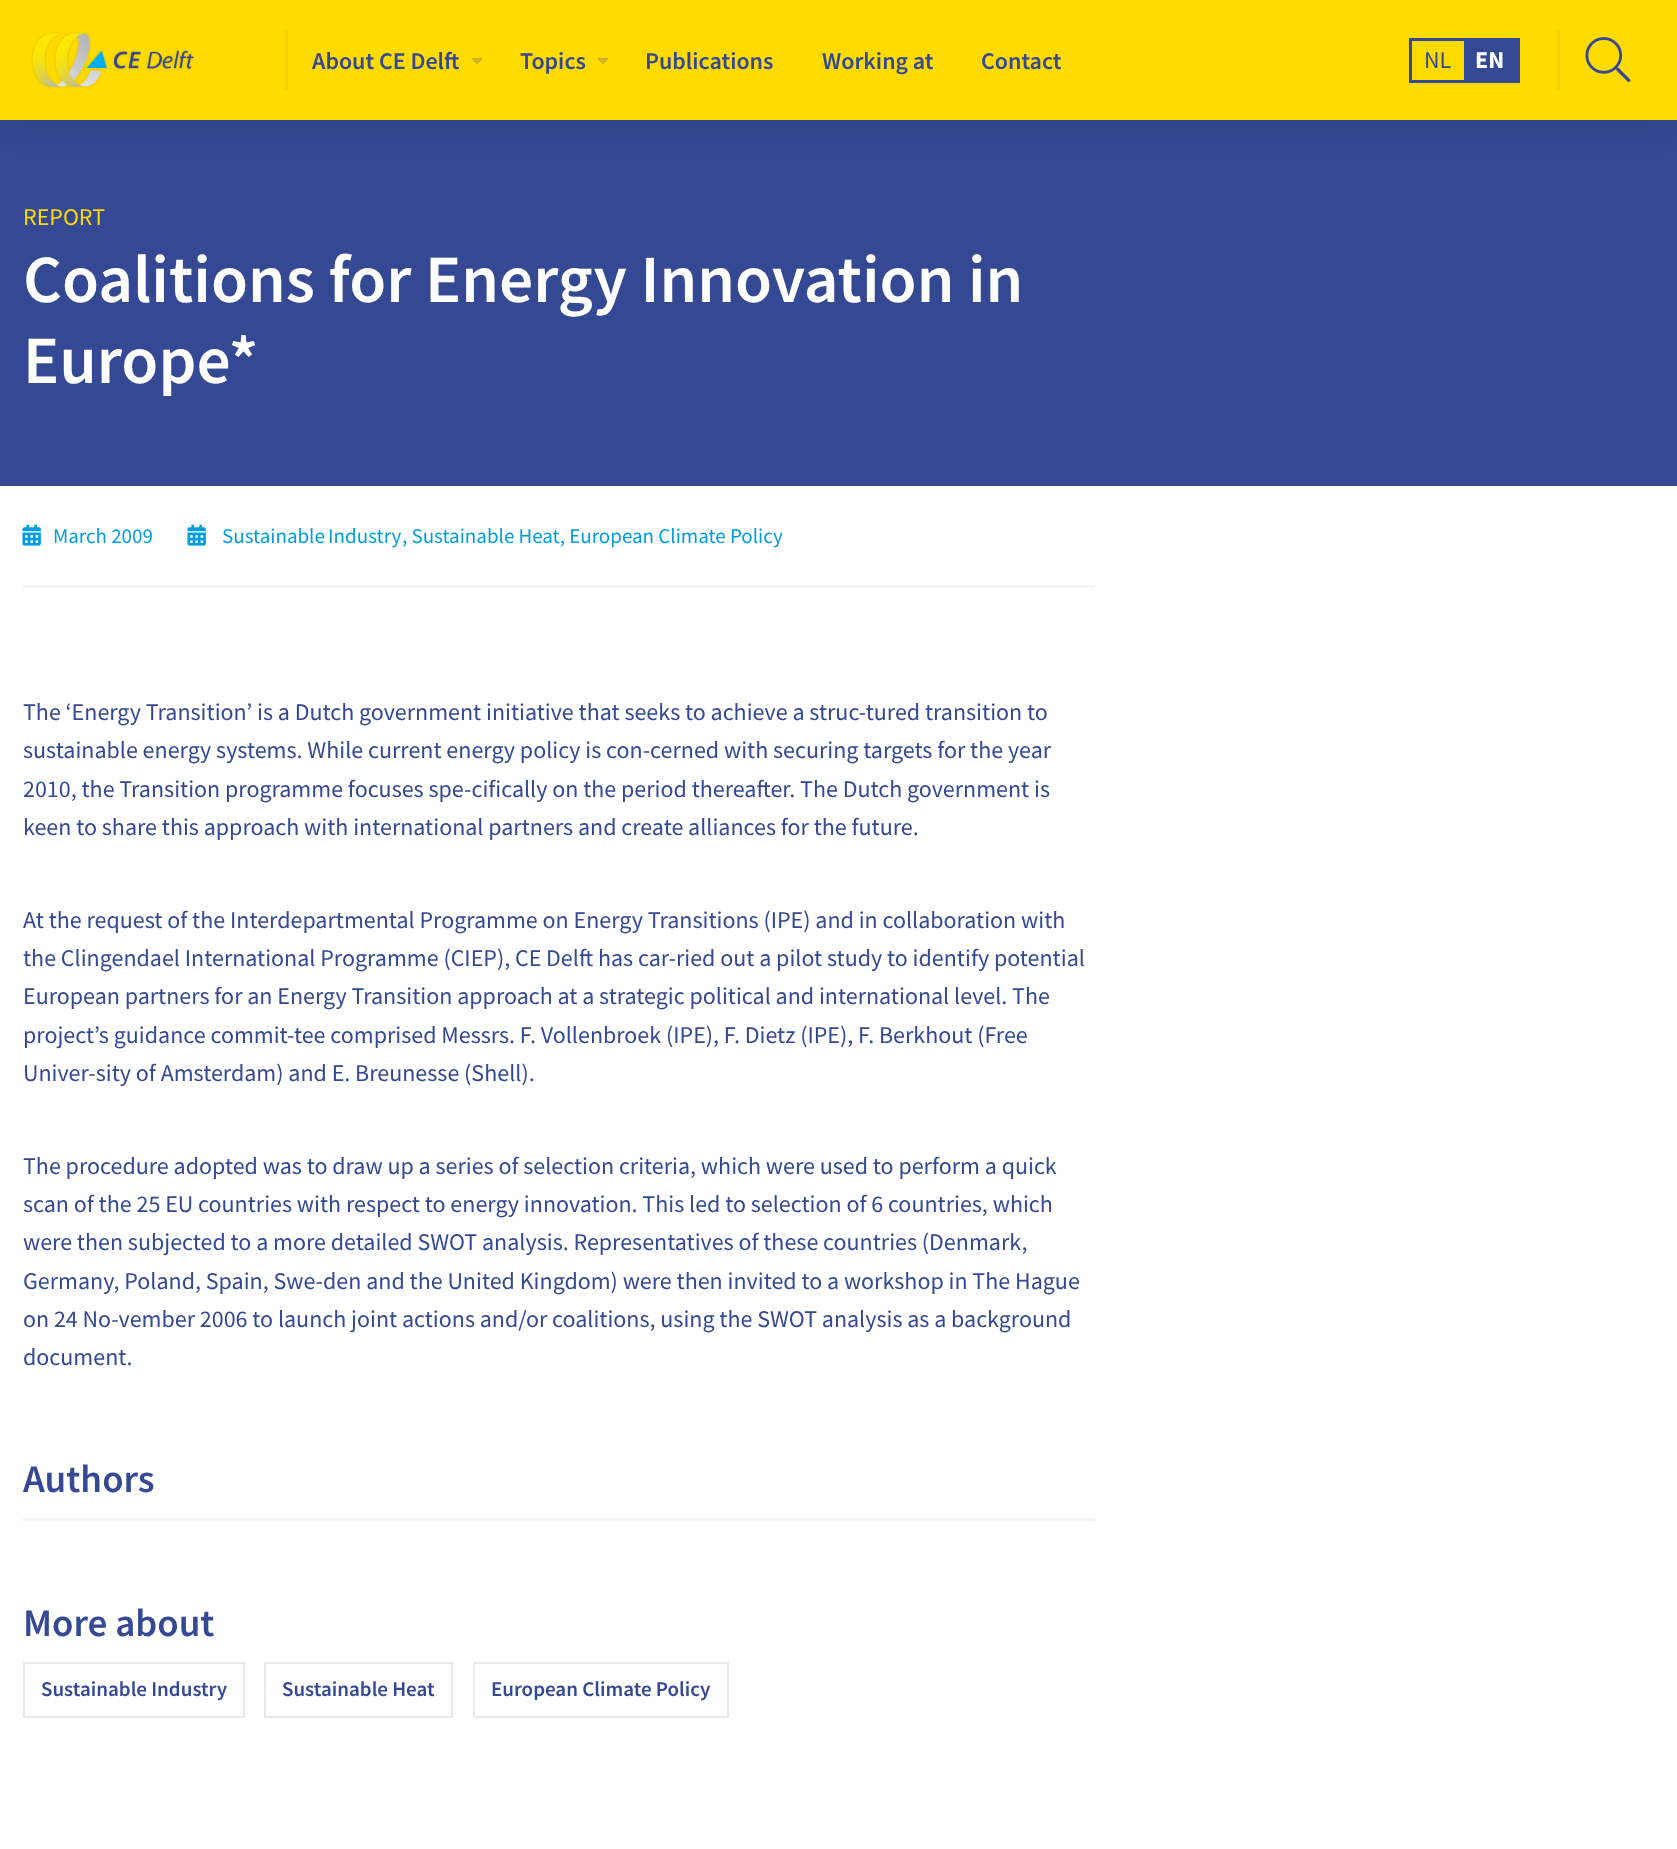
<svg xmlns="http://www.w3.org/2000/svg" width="1677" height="1849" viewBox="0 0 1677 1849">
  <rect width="100%" height="100%" fill="#fff"/>
  <path d="M0 120h1677v366H0z" fill="#344893"/>
  <path d="M0 0h1677v120H0z" fill="#00000017" filter="blur(19px)"/>
  <path d="M0 0h1677v120H0z" fill="#ffdb00"/>
  <path d="M285 30h3v60H285z" fill="#f4d205"/>
  <image x="31" y="32" width="163" height="56" href="img/1.png"/>
  <image x="471" y="57" width="12" height="7" href="img/2.png"/>
  <image x="597" y="57" width="12" height="7" href="img/2.png"/>
  <path d="M1410.5 39.5h108v42H1410.5z" fill="none" stroke="#344893" stroke-width="3"/>
  <path d="M1464 41h53v39H1464z" fill="#344893"/>
  <path d="M1557 30h3v60H1557z" fill="#f4d205"/>
  <image x="1585" y="37" width="46" height="46" href="img/3.png"/>
  <path d="M23 585h1072v3H23z" fill="#f4f4f4"/>
  <image x="22" y="524" width="19" height="22" href="img/4.png"/>
  <image x="187" y="524" width="19" height="22" href="img/4.png"/>
  <path d="M23 1518h1072v3H23z" fill="#f4f4f4"/>
  <path d="M24 1663h220v54H24z" fill="none" stroke="#e9e9e9" stroke-width="2"/>
  <path d="M265 1663h187v54H265z" fill="none" stroke="#e9e9e9" stroke-width="2"/>
  <path d="M474 1663h254v54H474z" fill="none" stroke="#e9e9e9" stroke-width="2"/>
  <g font-family="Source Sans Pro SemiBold" font-size="24" font-weight="600" fill="#344893">
    <text x="312" y="69">About CE Delft</text>
    <text x="520" y="69">Topics</text>
    <text x="645" y="69">Publications</text>
    <text x="822" y="69">Working at</text>
    <text x="981" y="69">Contact</text>
  </g>
  <text x="1424" y="68" font-family="Source Sans Pro" font-size="24" fill="#344893">NL</text>
  <text x="1475" y="68" font-family="Source Sans Pro" font-size="24" font-weight="bold" fill="#fff">EN</text>
  <text x="23" y="225" font-family="Source Sans Pro" font-size="24" fill="#ffdb00">REPORT</text>
  <g font-family="Source Sans Pro SemiBold" font-size="67.5" font-weight="600" fill="#fff">
    <text x="23" y="302">Coalitions for Energy Innovation in</text>
    <text x="23" y="383">Europe*</text>
  </g>
  <g font-family="Source Sans Pro" font-size="21" fill="#009ee0">
    <text x="53" y="543">March 2009</text>
    <text x="222" y="543" word-spacing="-1">Sustainable Industry</text>
    <text x="402" y="543">, Sustainable Heat, European Climate Policy</text>
  </g>
  <g font-family="Source Sans Pro" font-size="24" fill="#344893">
    <text x="23" y="720">The ‘Energy Transition’ is a Dutch government initiative that seeks to achieve a struc-tured transition to</text>
    <text x="23" y="758">sustainable energy systems. While current energy policy is con-cerned with securing targets for the year</text>
    <text x="23" y="797">2010, the Transition programme focuses spe-cifically on the period thereafter. The Dutch government is</text>
    <text x="23" y="835">keen to share this approach with international partners and create alliances for the future.</text>
    <text x="23" y="928">At the request of the Interdepartmental Programme on Energy Transitions (IPE) and in collaboration with</text>
    <text x="23" y="966">the Clingendael International Programme (CIEP), CE Delft has car-ried out a pilot study to identify potential</text>
    <text x="23" y="1004">European partners for an Energy Transition approach at a strategic political and international level. The</text>
    <text x="23" y="1043">project’s guidance commit-tee comprised Messrs. F. Vollenbroek (IPE), F. Dietz (IPE), F. Berkhout (Free</text>
    <text x="23" y="1081">Univer-sity of Amsterdam) and E. Breunesse (Shell).</text>
    <text x="23" y="1174">The procedure adopted was to draw up a series of selection criteria, which were used to perform a quick</text>
    <text x="23" y="1212">scan of the 25 EU countries with respect to energy innovation. This led to selection of 6 countries, which</text>
    <text x="23" y="1250">were then subjected to a more detailed SWOT analysis. Representatives of these countries (Denmark,</text>
    <text x="23" y="1289">Germany, Poland, Spain, Swe-den and the United Kingdom) were then invited to a workshop in The Hague</text>
    <text x="23" y="1327">on 24 No-vember 2006 to launch joint actions and/or coalitions, using the SWOT analysis as a background</text>
    <text x="23" y="1365">document.</text>
  </g>
  <g font-family="Source Sans Pro SemiBold" font-size="39" font-weight="600" fill="#344893">
    <text x="23" y="1492">Authors</text>
    <text x="23" y="1636">More about</text>
  </g>
  <g font-family="Source Sans Pro SemiBold" font-size="21" font-weight="600" fill="#344893">
    <text x="41" y="1696">Sustainable Industry</text>
    <text x="282" y="1696">Sustainable Heat</text>
    <text x="491" y="1696">European Climate Policy</text>
  </g>
</svg>
